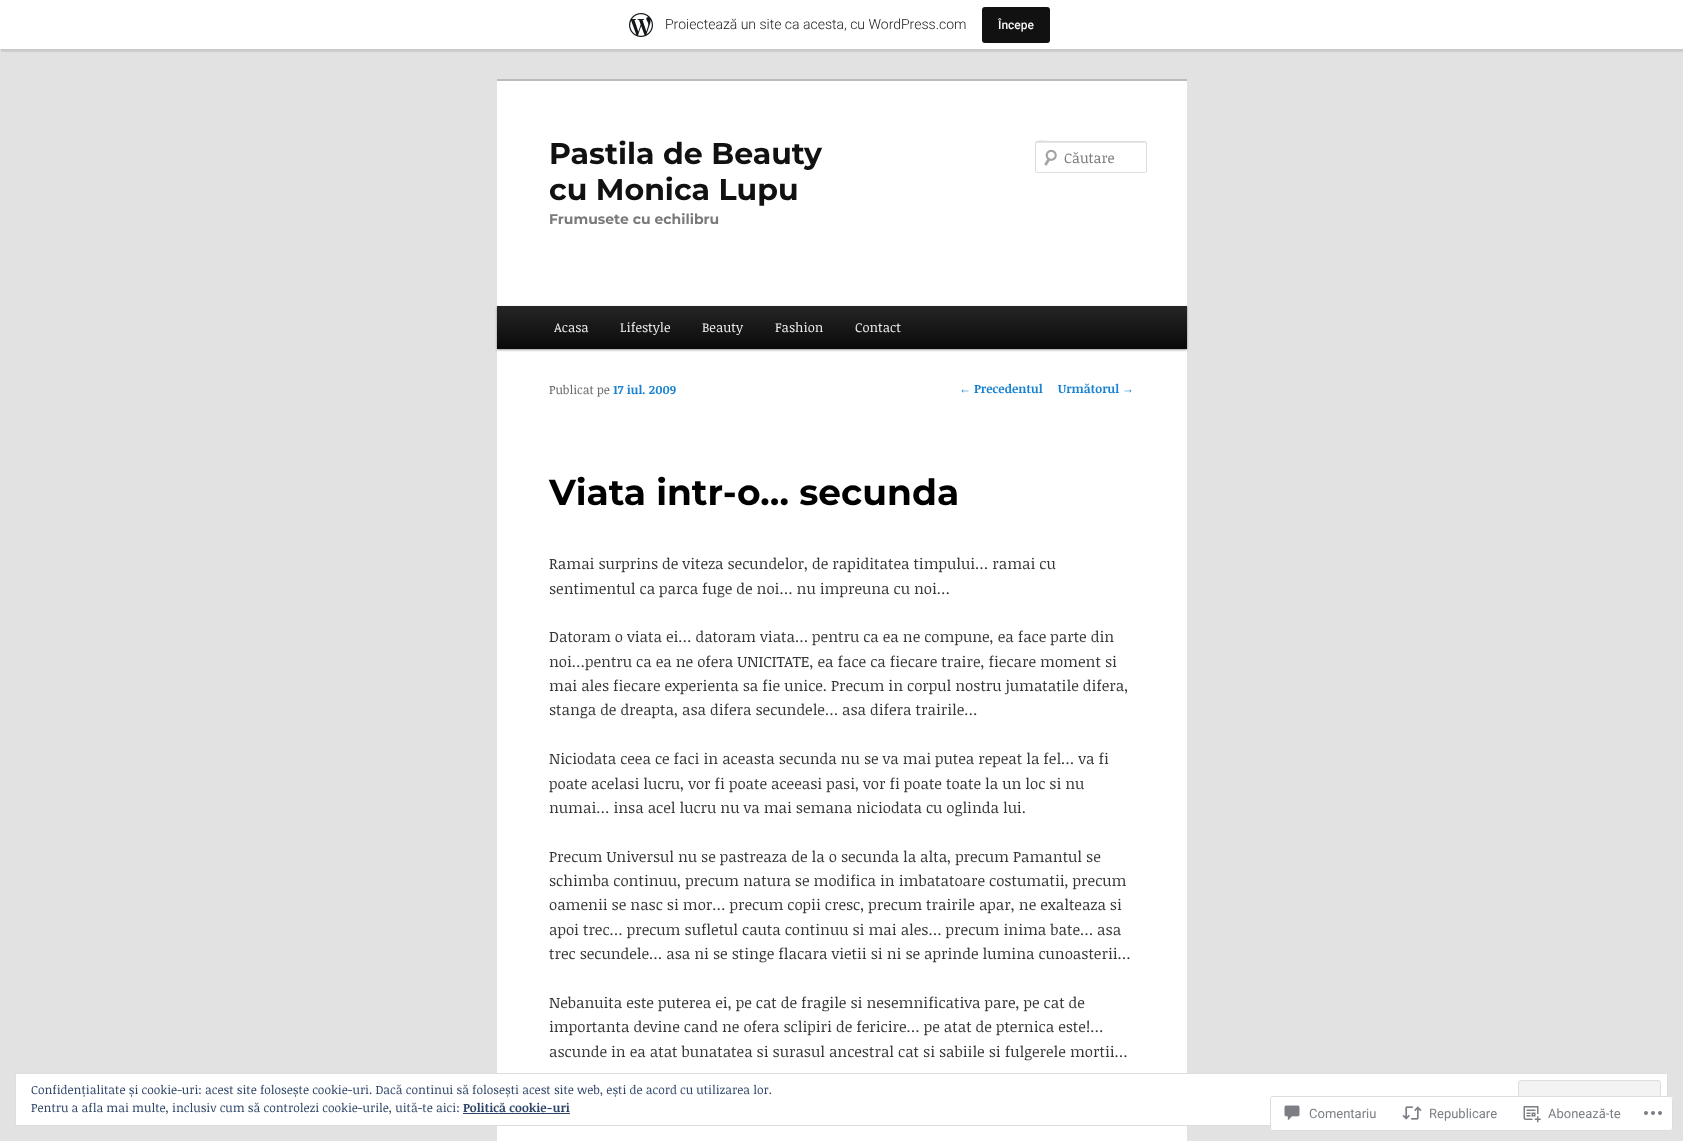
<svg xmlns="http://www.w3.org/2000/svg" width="1683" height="1141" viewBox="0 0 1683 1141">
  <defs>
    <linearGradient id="g1" gradientUnits="userSpaceOnUse" x1="842" y1="306" x2="842" y2="349"><stop offset="0" stop-color="#252525"/><stop offset="1" stop-color="#0a0a0a"/></linearGradient>
  </defs>
  <rect width="100%" height="100%" fill="#e2e2e2"/>
  <path d="M0 1h1683v49H0z" fill="#0000000d" filter="blur(1px)"/>
  <path d="M1 49V52H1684V3H1683V49Z" fill="#00000014"/>
  <path d="M0 0h1683v49H0z" fill="#fff"/>
  <image x="629" y="13" width="24" height="24" href="img/1.png"/>
  <rect x="982" y="7" width="68" height="36" rx="3" fill="#111"/>
  <path d="M497 81h690v1060H497z" fill="#fff"/>
  <path d="M497 79h690v2H497z" fill="#bbb"/>
  <image x="1044" y="149" width="13" height="17" href="img/2.png"/>
  <path d="M1037 143H1146V144L1145 142H1055C1051 142 1036 137 1036 144C1036 143 1036 143 1037 143Z" fill="#e6e6e6"/>
  <rect x="1035.5" y="141.5" width="111" height="31" rx="1.5" fill="none" stroke="#ddd"/>
  <path d="M497 307h690v43H497z" fill="#00000066" filter="blur(1px)"/>
  <path d="M497 306h690v43H497z" fill="url(#g1)"/>
  <path d="M15.5 1073.5h1652v52H15.5z" fill="#fff" stroke="#dedede"/>
  <rect x="1518.5" y="1080.5" width="142" height="38" rx="2.5" fill="#f3f3f3" stroke="#dedede"/>
  <path d="M463 1113h107v1H463z" fill="#2e4467"/>
  <rect x="1270" y="1096" width="403" height="35" rx="3" fill="#fffffffa"/>
  <rect x="1270.5" y="1096.5" width="402" height="34" rx="2.5" fill="none" stroke="#dcdcdefa"/>
  <image x="1284" y="1105" width="16" height="16" href="img/3.png"/>
  <image x="1402" y="1106" width="20" height="14" href="img/4.png"/>
  <image x="1523" y="1106" width="18" height="17" href="img/5.png"/>
  <image x="1644" y="1111" width="18" height="4" href="img/6.png"/>
  <text x="665" y="29" font-family="Roboto" font-size="14" font-weight="300" fill="#171717">Proiectează un site ca acesta, cu WordPress.com</text>
  <text x="998" y="29" font-family="Roboto" font-size="12" font-weight="500" fill="#f6f7f7">Începe</text>
  <g font-family="Montserrat" font-size="30" font-weight="100" fill="#111">
    <text x="549" y="164">Pastila de Beauty</text>
    <text x="549" y="200">cu Monica Lupu</text>
  </g>
  <text x="549" y="224" font-family="Montserrat" font-size="14" font-weight="100" fill="#7a7a7a">Frumusete cu echilibru</text>
  <text x="1064" y="163" font-family="Noticia Text" font-size="14" fill="#7a7a7a">Căutare</text>
  <g font-family="Noticia Text" font-size="13" fill="#eee">
    <text x="554" y="332">Acasa</text>
    <text x="620" y="332">Lifestyle</text>
    <text x="702" y="332">Beauty</text>
    <text x="775" y="332">Fashion</text>
    <text x="855" y="332">Contact</text>
  </g>
  <text x="959" y="393" font-family="Liberation Serif" font-size="12" fill="#1982d1">←</text>
  <g font-family="Noticia Text" font-size="12" font-weight="bold" fill="#1982d1">
    <text x="974" y="393">Precedentul</text>
    <text x="1058" y="393">Următorul</text>
  </g>
  <text x="1122" y="393" font-family="Liberation Serif" font-size="12" fill="#1982d1">→</text>
  <text x="549" y="394" font-family="Noticia Text" font-size="12" fill="#666">Publicat pe</text>
  <text x="613" y="394" font-family="Noticia Text" font-size="12" font-weight="bold" fill="#1982d1">17 iul. 2009</text>
  <text x="549" y="505" font-family="Montserrat" font-size="36" font-weight="100" fill="#000">Viata intr-o… secunda</text>
  <g font-family="Noticia Text" font-size="15" fill="#373737">
    <text x="549" y="569">Ramai surprins de viteza secundelor, de rapiditatea timpului… ramai cu</text>
    <text x="549" y="594">sentimentul ca parca fuge de noi… nu impreuna cu noi…</text>
    <text x="549" y="642">Datoram o viata ei… datoram viata… pentru ca ea ne compune, ea face parte din</text>
    <text x="549" y="667">noi…pentru ca ea ne ofera UNICITATE, ea face ca fiecare traire, fiecare moment si</text>
    <text x="549" y="691">mai ales fiecare experienta sa fie unice. Precum in corpul nostru jumatatile difera,</text>
    <text x="549" y="715">stanga de dreapta, asa difera secundele… asa difera trairile…</text>
    <text x="549" y="764">Niciodata ceea ce faci in aceasta secunda nu se va mai putea repeat la fel… va fi</text>
    <text x="549" y="789">poate acelasi lucru, vor fi poate aceeasi pasi, vor fi poate toate la un loc si nu</text>
    <text x="549" y="813">numai… insa acel lucru nu va mai semana niciodata cu oglinda lui.</text>
    <text x="549" y="862">Precum Universul nu se pastreaza de la o secunda la alta, precum Pamantul se</text>
    <text x="549" y="886">schimba continuu, precum natura se modifica in imbatatoare costumatii, precum</text>
    <text x="549" y="910">oamenii se nasc si mor… precum copii cresc, precum trairile apar, ne exalteaza si</text>
    <text x="549" y="935">apoi trec… precum sufletul cauta continuu si mai ales… precum inima bate… asa</text>
    <text x="549" y="959">trec secundele… asa ni se stinge flacara vietii si ni se aprinde lumina cunoasterii…</text>
    <text x="549" y="1008">Nebanuita este puterea ei, pe cat de fragile si nesemnificativa pare, pe cat de</text>
    <text x="549" y="1032">importanta devine cand ne ofera sclipiri de fericire… pe atat de pternica este!…</text>
    <text x="549" y="1057">ascunde in ea atat bunatatea si surasul ancestral cat si sabiile si fulgerele mortii…</text>
  </g>
  <g font-family="Noticia Text" font-size="12" fill="#2e4467">
    <text x="31" y="1094">Confidențialitate și cookie-uri: acest site folosește cookie-uri. Dacă continui să folosești acest site web, ești de acord cu utilizarea lor.</text>
    <text x="31" y="1112">Pentru a afla mai multe, inclusiv cum să controlezi cookie-urile, uită-te aici:</text>
  </g>
  <text x="463" y="1112" font-family="Noticia Text" font-size="12" font-weight="bold" fill="#2e4467">Politică cookie-uri</text>
  <g font-family="Roboto" font-size="13" fill="#7b7f85">
    <text x="1309" y="1118">Comentariu</text>
    <text x="1429" y="1118">Republicare</text>
    <text x="1548" y="1118">Abonează-te</text>
  </g>
</svg>
